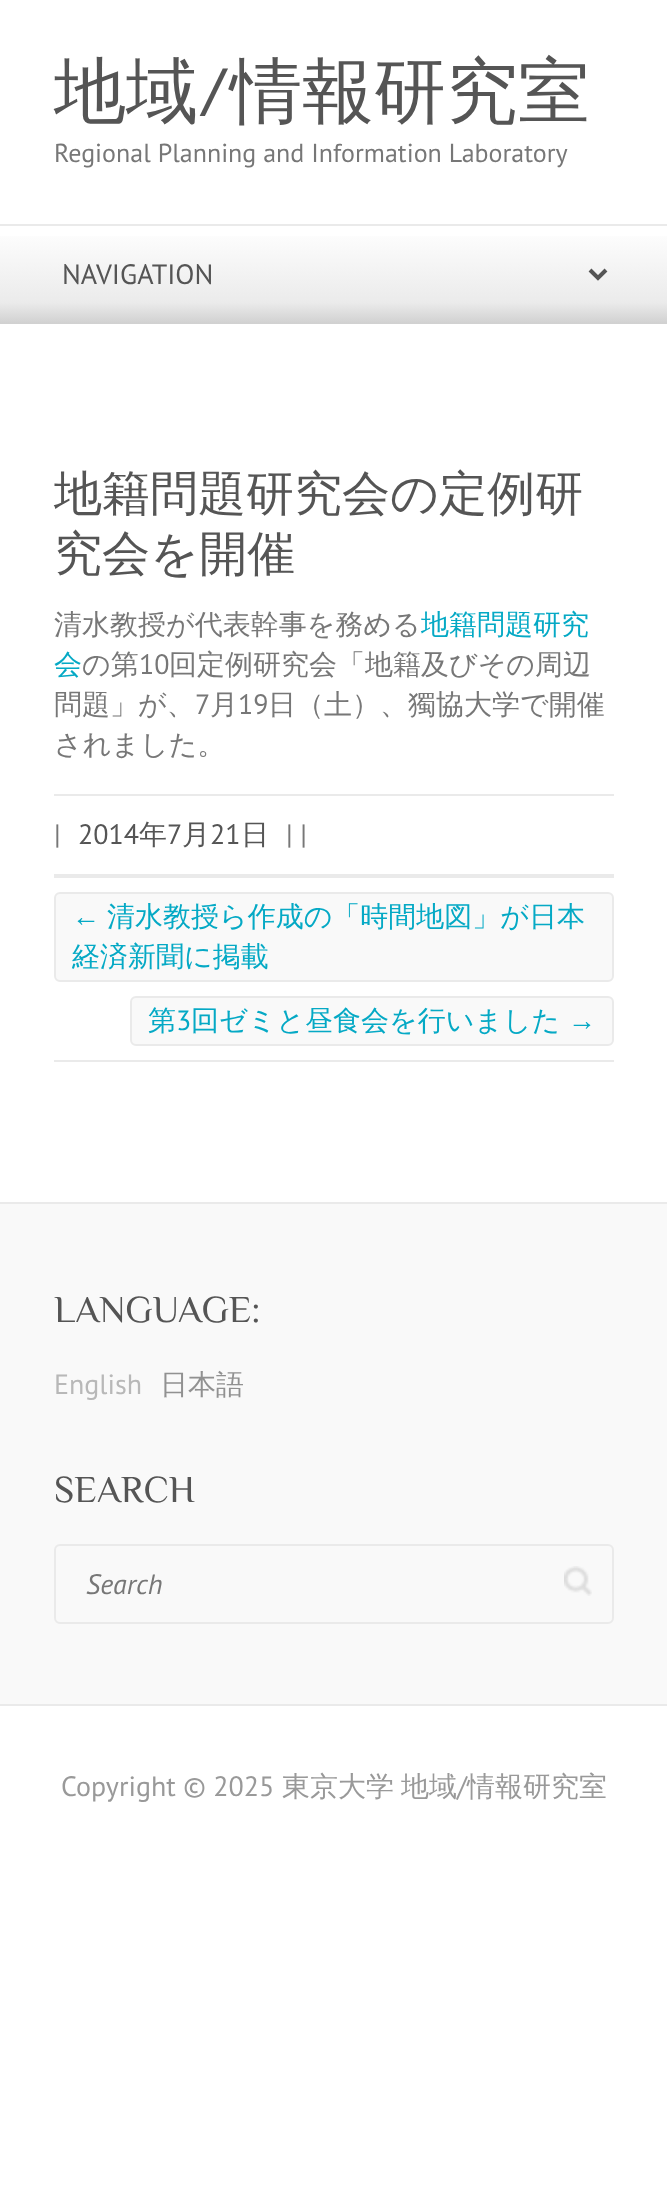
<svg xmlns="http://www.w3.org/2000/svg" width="667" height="2197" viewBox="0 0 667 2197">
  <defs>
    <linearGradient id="g1" gradientUnits="userSpaceOnUse" x1="334" y1="226" x2="334" y2="324"><stop offset="0" stop-color="#fff"/><stop offset="0.78" stop-color="#ebebeb"/><stop offset="0.99" stop-color="#d1d1d1"/></linearGradient>
  </defs>
  <rect width="100%" height="100%" fill="#fff"/>
  <path d="M0 236h667v88H0z" fill="url(#g1)"/>
  <path d="M0 224h667v2H0z" fill="#eaeaea"/>
  <path d="M590 270L598 278L606 270" fill="none" stroke="#555" stroke-width="4"/>
  <path d="M54 794h560v2H54z" fill="#eaeaea"/>
  <path d="M54 874h560v4H54z" fill="#eaeaea"/>
  <path d="M54 1060h560v2H54z" fill="#eaeaea"/>
  <rect x="55" y="893" width="558" height="88" rx="5" fill="#f9f9f9" stroke="#eaeaea" stroke-width="2"/>
  <rect x="131" y="997" width="482" height="48" rx="5" fill="#f9f9f9" stroke="#eaeaea" stroke-width="2"/>
  <path d="M0 1204h667v500H0z" fill="#f9f9f9"/>
  <path d="M0 1202h667v2H0z" fill="#eaeaea"/>
  <image x="564" y="1566" width="28" height="30" href="img/1.png"/>
  <rect x="55" y="1545" width="558" height="78" rx="5" fill="none" stroke="#eaeaea" stroke-width="2"/>
  <path d="M0 1704h667v2H0z" fill="#eaeaea"/>
  <text x="54" y="116" font-family="WenQuanYi Zen Hei" font-size="72" font-weight="500" fill="#555">地域</text>
  <text x="198" y="116" font-family="Philosopher" font-size="72" fill="#555">/</text>
  <text x="230" y="116" font-family="WenQuanYi Zen Hei" font-size="72" font-weight="500" fill="#555">情報研究室</text>
  <text x="54" y="162" font-family="PT Sans" font-size="26" fill="#777">Regional Planning and Information Laboratory</text>
  <text x="62" y="284" font-family="PT Sans" font-size="28" fill="#555">NAVIGATION</text>
  <g font-family="WenQuanYi Zen Hei" font-size="48" font-weight="500" fill="#555">
    <text x="54" y="510">地籍問題研究会の定例研</text>
    <text x="54" y="570">究会を開催</text>
  </g>
  <text x="54" y="634" font-family="WenQuanYi Zen Hei" font-size="28" font-weight="500" fill="#777">清水教授が代表幹事を務める</text>
  <g font-family="WenQuanYi Zen Hei" font-size="28" font-weight="500" fill="#05a9c5">
    <text x="421" y="634">地籍問題研究</text>
    <text x="54" y="674">会</text>
  </g>
  <text x="82" y="674" font-family="WenQuanYi Zen Hei" font-size="28" font-weight="500" fill="#777">の第</text>
  <text x="139" y="674" font-family="PT Sans" font-size="28" fill="#777">10</text>
  <g font-family="WenQuanYi Zen Hei" font-size="28" font-weight="500" fill="#777">
    <text x="169" y="674">回定例研究会「地籍及びその周辺</text>
    <text x="54" y="714">問題」が、</text>
  </g>
  <text x="195" y="714" font-family="PT Sans" font-size="28" fill="#777">7</text>
  <text x="210" y="714" font-family="WenQuanYi Zen Hei" font-size="28" font-weight="500" fill="#777">月</text>
  <text x="238" y="714" font-family="PT Sans" font-size="28" fill="#777">19</text>
  <g font-family="WenQuanYi Zen Hei" font-size="28" font-weight="500" fill="#777">
    <text x="268" y="714">日（土）、獨協大学で開催</text>
    <text x="54" y="754">されました。</text>
  </g>
  <text x="54" y="844" font-family="PT Sans" font-size="28" fill="#777">|</text>
  <text x="78" y="844" font-family="PT Sans" font-size="28" fill="#555">2014</text>
  <text x="139" y="844" font-family="WenQuanYi Zen Hei" font-size="28" font-weight="500" fill="#555">年</text>
  <text x="167" y="844" font-family="PT Sans" font-size="28" fill="#555">7</text>
  <text x="182" y="844" font-family="WenQuanYi Zen Hei" font-size="28" font-weight="500" fill="#555">月</text>
  <text x="210" y="844" font-family="PT Sans" font-size="28" fill="#555">21</text>
  <text x="241" y="844" font-family="WenQuanYi Zen Hei" font-size="28" font-weight="500" fill="#555">日</text>
  <text x="286" y="844" font-family="PT Sans" font-size="28" fill="#777">| |</text>
  <text x="72" y="926" font-family="Liberation Sans" font-size="28" fill="#05a9c5">←</text>
  <g font-family="WenQuanYi Zen Hei" font-size="28" font-weight="500" fill="#05a9c5">
    <text x="107" y="926">清水教授ら作成の「時間地図」が日本</text>
    <text x="72" y="966">経済新聞に掲載</text>
    <text x="148" y="1030">第</text>
  </g>
  <text x="176" y="1030" font-family="PT Sans" font-size="28" fill="#05a9c5">3</text>
  <text x="191" y="1030" font-family="WenQuanYi Zen Hei" font-size="28" font-weight="500" fill="#05a9c5">回ゼミと昼食会を行いました</text>
  <text x="568" y="1030" font-family="Liberation Sans" font-size="28" fill="#05a9c5">→</text>
  <text x="54" y="1322" font-family="Philosopher" font-size="38" fill="#555">LANGUAGE:</text>
  <text x="54" y="1394" font-family="PT Sans" font-size="28" fill="#b8b8b8">English</text>
  <text x="160" y="1394" font-family="WenQuanYi Zen Hei" font-size="28" font-weight="500" fill="#919191">日本語</text>
  <text x="54" y="1502" font-family="Philosopher" font-size="38" fill="#555">SEARCH</text>
  <text x="86" y="1594" font-family="PT Sans" font-size="28" font-style="italic" fill="#777">Search</text>
  <text x="61" y="1796" font-family="PT Sans" font-size="28" fill="#999">Copyright © 2025</text>
  <g font-family="WenQuanYi Zen Hei" font-size="28" font-weight="500" fill="#999">
    <text x="282" y="1796">東京大学</text>
    <text x="401" y="1796">地域</text>
  </g>
  <text x="457" y="1796" font-family="PT Sans" font-size="28" fill="#999">/</text>
  <text x="467" y="1796" font-family="WenQuanYi Zen Hei" font-size="28" font-weight="500" fill="#999">情報研究室</text>
</svg>
